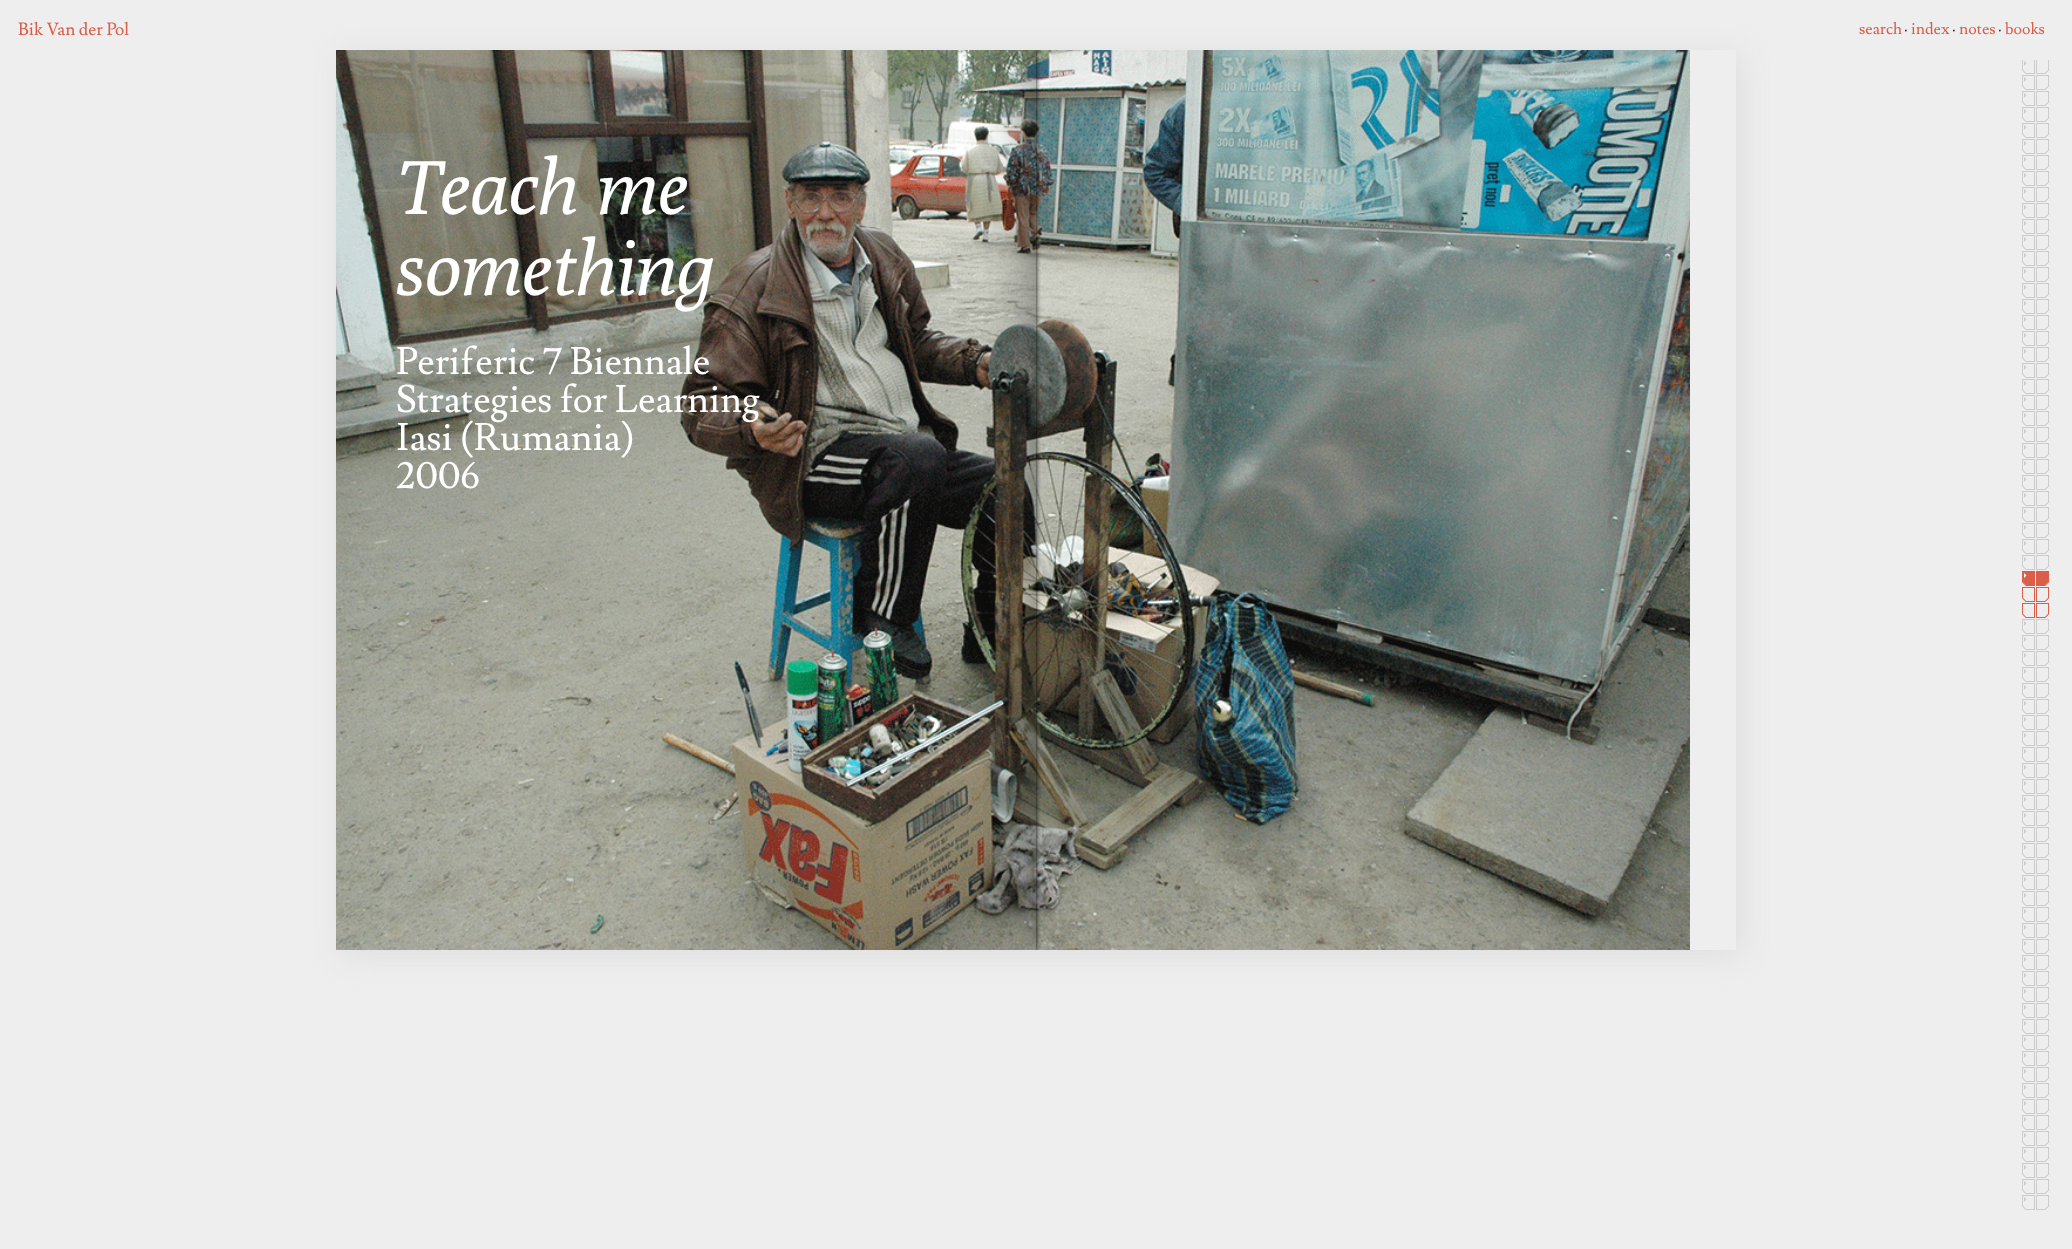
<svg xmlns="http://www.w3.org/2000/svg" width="2072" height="1249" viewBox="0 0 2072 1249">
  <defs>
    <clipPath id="clip1"><path d="M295 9H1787V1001H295ZM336 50H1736V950H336Z" clip-rule="evenodd"/></clipPath>
    <clipPath id="clip2"><path d="M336 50h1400v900H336z"/></clipPath>
    <clipPath id="clip3"><path d="M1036 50h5v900H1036z"/></clipPath>
    <clipPath id="clip4"><path d="M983 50h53v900H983z"/></clipPath>
  </defs>
  <rect width="100%" height="100%" fill="#eee"/>
  <g clip-path="url(#clip1)">
    <path d="M341 55h1400v900H341z" fill="#ddd" filter="blur(15px)"/>
  </g>
  <image x="336" y="50" width="1354" height="900" href="img/1.png"/>
  <g clip-path="url(#clip2)">
    <g clip-path="url(#clip3)">
      <path d="M336 50h700v900H336z" fill="#000" filter="blur(2.5px)"/>
    </g>
  </g>
  <g clip-path="url(#clip2)">
    <g clip-path="url(#clip4)">
      <path d="M1036 50h700v900H1036z" fill="#00000080" filter="blur(30px)"/>
    </g>
  </g>
  <image x="2022" y="60" width="27" height="14" href="img/2.png"/>
  <image x="2022" y="75" width="27" height="15" href="img/3.png"/>
  <image x="2022" y="91" width="27" height="15" href="img/3.png"/>
  <image x="2022" y="107" width="27" height="15" href="img/3.png"/>
  <image x="2022" y="123" width="27" height="15" href="img/3.png"/>
  <image x="2022" y="139" width="27" height="15" href="img/3.png"/>
  <image x="2022" y="155" width="27" height="15" href="img/3.png"/>
  <image x="2022" y="171" width="27" height="15" href="img/3.png"/>
  <image x="2022" y="187" width="27" height="15" href="img/3.png"/>
  <image x="2022" y="203" width="27" height="15" href="img/3.png"/>
  <image x="2022" y="219" width="27" height="15" href="img/3.png"/>
  <image x="2022" y="235" width="27" height="15" href="img/3.png"/>
  <image x="2022" y="251" width="27" height="15" href="img/3.png"/>
  <image x="2022" y="267" width="27" height="15" href="img/3.png"/>
  <image x="2022" y="283" width="27" height="15" href="img/3.png"/>
  <image x="2022" y="299" width="27" height="15" href="img/3.png"/>
  <image x="2022" y="315" width="27" height="15" href="img/3.png"/>
  <image x="2022" y="331" width="27" height="15" href="img/3.png"/>
  <image x="2022" y="347" width="27" height="15" href="img/3.png"/>
  <image x="2022" y="363" width="27" height="15" href="img/3.png"/>
  <image x="2022" y="379" width="27" height="15" href="img/3.png"/>
  <image x="2022" y="395" width="27" height="15" href="img/3.png"/>
  <image x="2022" y="411" width="27" height="15" href="img/3.png"/>
  <image x="2022" y="427" width="27" height="15" href="img/3.png"/>
  <image x="2022" y="443" width="27" height="15" href="img/3.png"/>
  <image x="2022" y="459" width="27" height="15" href="img/3.png"/>
  <image x="2022" y="475" width="27" height="15" href="img/3.png"/>
  <image x="2022" y="491" width="27" height="15" href="img/3.png"/>
  <image x="2022" y="507" width="27" height="15" href="img/3.png"/>
  <image x="2022" y="523" width="27" height="15" href="img/3.png"/>
  <image x="2022" y="539" width="27" height="15" href="img/3.png"/>
  <image x="2022" y="555" width="27" height="15" href="img/3.png"/>
  <image x="2022" y="571" width="27" height="15" href="img/4.png"/>
  <image x="2022" y="587" width="27" height="15" href="img/5.png"/>
  <image x="2022" y="603" width="27" height="15" href="img/5.png"/>
  <image x="2022" y="619" width="27" height="15" href="img/3.png"/>
  <image x="2022" y="635" width="27" height="15" href="img/3.png"/>
  <image x="2022" y="651" width="27" height="15" href="img/3.png"/>
  <image x="2022" y="667" width="27" height="15" href="img/3.png"/>
  <image x="2022" y="683" width="27" height="15" href="img/3.png"/>
  <image x="2022" y="699" width="27" height="15" href="img/3.png"/>
  <image x="2022" y="715" width="27" height="15" href="img/3.png"/>
  <image x="2022" y="731" width="27" height="15" href="img/3.png"/>
  <image x="2022" y="747" width="27" height="15" href="img/3.png"/>
  <image x="2022" y="763" width="27" height="15" href="img/3.png"/>
  <image x="2022" y="779" width="27" height="15" href="img/3.png"/>
  <image x="2022" y="795" width="27" height="15" href="img/3.png"/>
  <image x="2022" y="811" width="27" height="15" href="img/3.png"/>
  <image x="2022" y="827" width="27" height="15" href="img/3.png"/>
  <image x="2022" y="843" width="27" height="15" href="img/3.png"/>
  <image x="2022" y="859" width="27" height="15" href="img/3.png"/>
  <image x="2022" y="875" width="27" height="15" href="img/3.png"/>
  <image x="2022" y="891" width="27" height="15" href="img/3.png"/>
  <image x="2022" y="907" width="27" height="15" href="img/3.png"/>
  <image x="2022" y="923" width="27" height="15" href="img/3.png"/>
  <image x="2022" y="939" width="27" height="15" href="img/3.png"/>
  <image x="2022" y="955" width="27" height="15" href="img/3.png"/>
  <image x="2022" y="971" width="27" height="15" href="img/3.png"/>
  <image x="2022" y="987" width="27" height="15" href="img/3.png"/>
  <image x="2022" y="1003" width="27" height="15" href="img/3.png"/>
  <image x="2022" y="1019" width="27" height="15" href="img/3.png"/>
  <image x="2022" y="1035" width="27" height="15" href="img/3.png"/>
  <image x="2022" y="1051" width="27" height="15" href="img/3.png"/>
  <image x="2022" y="1067" width="27" height="15" href="img/3.png"/>
  <image x="2022" y="1083" width="27" height="15" href="img/3.png"/>
  <image x="2022" y="1099" width="27" height="15" href="img/3.png"/>
  <image x="2022" y="1115" width="27" height="15" href="img/3.png"/>
  <image x="2022" y="1131" width="27" height="15" href="img/3.png"/>
  <image x="2022" y="1147" width="27" height="15" href="img/3.png"/>
  <image x="2022" y="1163" width="27" height="15" href="img/3.png"/>
  <image x="2022" y="1179" width="27" height="15" href="img/3.png"/>
  <image x="2022" y="1195" width="27" height="15" href="img/3.png"/>
  <text x="18" y="35" font-family="Lusitana" font-size="17.5" fill="#d95e48">Bik Van der Pol</text>
  <text x="1859" y="34" font-family="Lusitana" font-size="16" fill="#d95e48">search</text>
  <text x="1904" y="34" font-family="Lusitana" font-size="16" fill="#333">·</text>
  <text x="1911" y="34" font-family="Lusitana" font-size="16" fill="#d95e48">index</text>
  <text x="1952" y="34" font-family="Lusitana" font-size="16" fill="#333">·</text>
  <text x="1959" y="34" font-family="Lusitana" font-size="16" fill="#d95e48">notes</text>
  <text x="1998" y="34" font-family="Lusitana" font-size="16" fill="#333">·</text>
  <text x="2005" y="34" font-family="Lusitana" font-size="16" fill="#d95e48">books</text>
  <g font-family="Poly" font-size="76" font-style="italic" fill="#fff">
    <text x="396" y="214">Teach me</text>
    <text x="396" y="295">something</text>
  </g>
  <g font-family="Lusitana" font-size="38" fill="#fff">
    <text x="396" y="374">Periferic 7 Biennale</text>
    <text x="396" y="412">Strategies for Learning</text>
    <text x="396" y="450">Iasi (Rumania)</text>
    <text x="396" y="488">2006</text>
  </g>
</svg>
